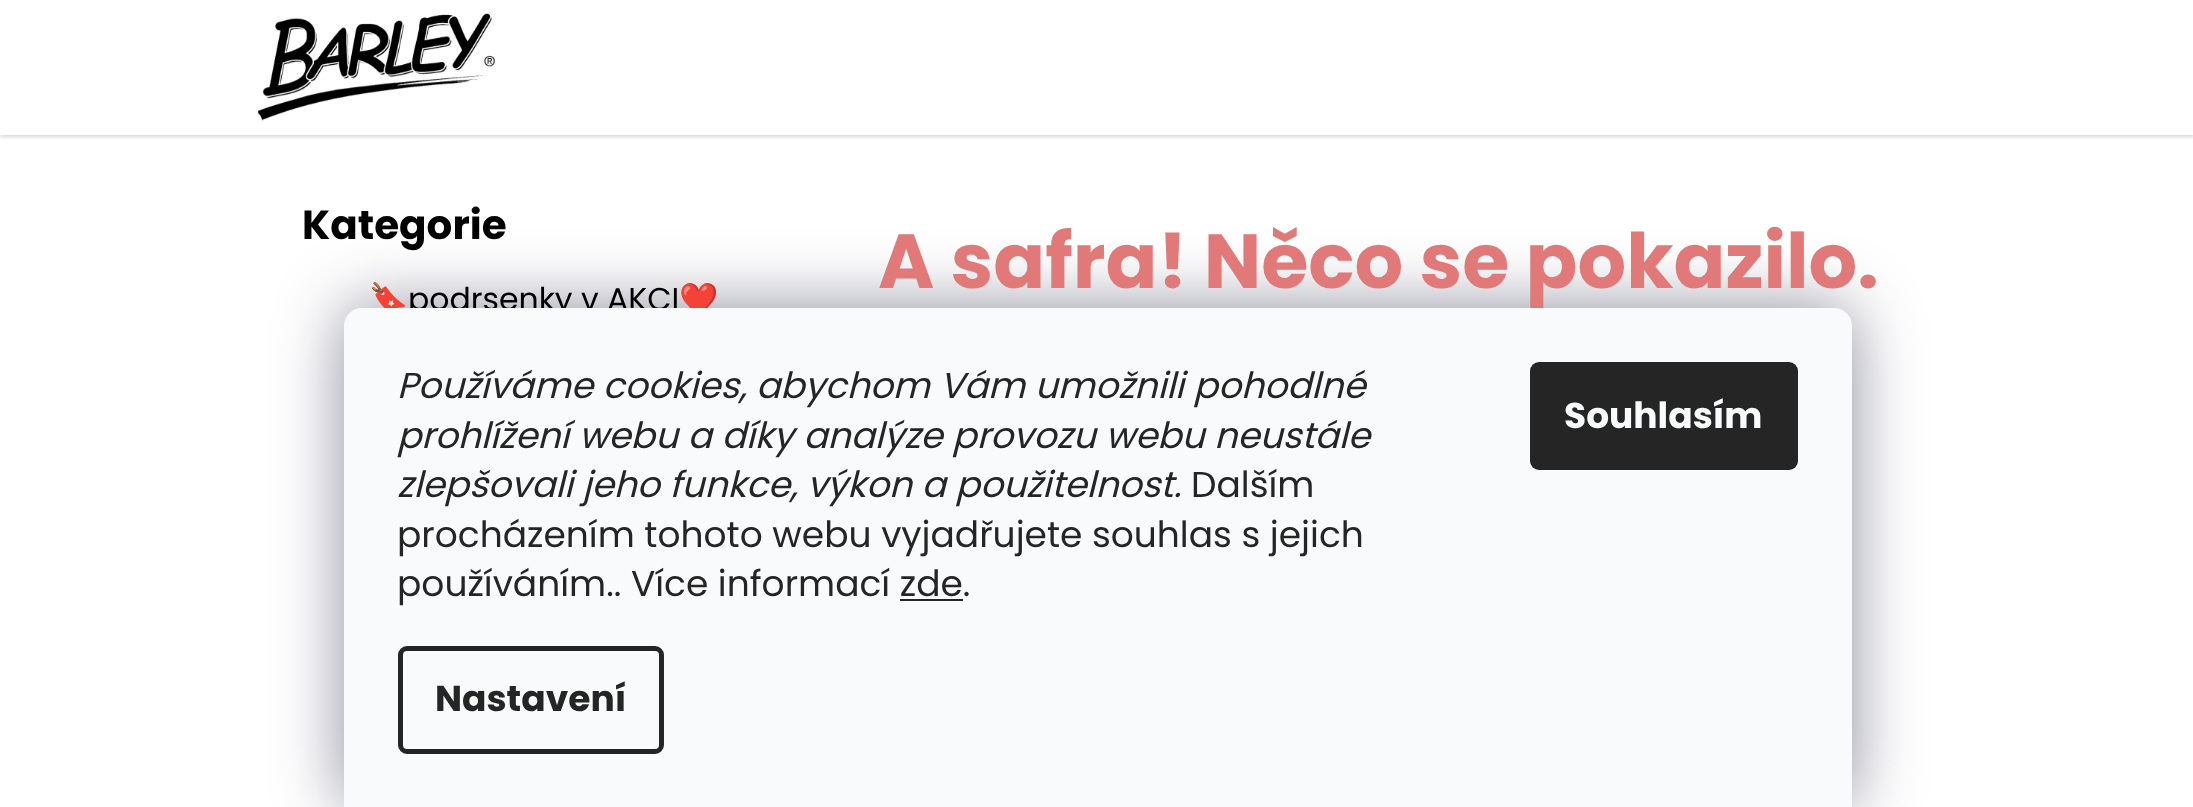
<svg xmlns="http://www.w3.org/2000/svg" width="2193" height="807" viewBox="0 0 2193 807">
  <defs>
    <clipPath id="clip1"><path d="M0 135h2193v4H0z"/></clipPath>
  </defs>
  <rect width="100%" height="100%" fill="#fff"/>
  <g clip-path="url(#clip1)">
    <path d="M0 2h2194v135H0z" fill="#00000029" filter="blur(2px)"/>
  </g>
  <image x="257" y="13" width="238" height="108" href="img/1.png"/>
  <rect x="344" y="308" width="1508" height="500" rx="18" fill="#1b193980" filter="blur(34px)"/>
  <text x="302" y="239" font-family="Poppins" font-size="40.5" font-weight="bold" fill="#000">Kategorie</text>
  <text x="369" y="310" font-family="Noto Color Emoji" font-size="31.5" fill="#000">🔖</text>
  <text x="408" y="310" font-family="Poppins" font-size="31.5" fill="#000">podrsenky v AKCI</text>
  <text x="679" y="310" font-family="Noto Color Emoji" font-size="31.5" fill="#000">❤️</text>
  <text x="878" y="288" font-family="Poppins" font-size="76.5" font-weight="bold" fill="#e27979">A safra! Něco se pokazilo.</text>
  <path d="M362 308H1834C1844 308 1852 316 1852 326V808H344V326C344 316 352 308 362 308Z" fill="#f8fafb"/>
  <g font-family="Poppins" font-size="36" font-style="italic" fill="#252525">
    <text x="397" y="398">Používáme cookies, abychom Vám umožnili pohodlné</text>
    <text x="397" y="448">prohlížení webu a díky analýze provozu webu neustále</text>
    <text x="397" y="497">zlepšovali jeho funkce, výkon a použitelnost.</text>
  </g>
  <g font-family="Poppins" font-size="36" fill="#252525">
    <text x="1191" y="497">Dalším</text>
    <text x="397" y="547">procházením tohoto webu vyjadřujete souhlas s jejich</text>
    <text x="397" y="596">používáním.. Více informací zde.</text>
  </g>
  <path d="M900 599h63v2H900z" fill="#252525"/>
  <rect x="400.5" y="648.5" width="261" height="103" rx="6.5" fill="none" stroke="#252525" stroke-width="5"/>
  <text x="435" y="711" font-family="Poppins" font-size="36" font-weight="bold" fill="#252525">Nastavení</text>
  <rect x="1530" y="362" width="268" height="108" rx="9" fill="#252525"/>
  <text x="1564" y="428" font-family="Poppins" font-size="36" font-weight="bold" fill="#f8fafb">Souhlasím</text>
</svg>
